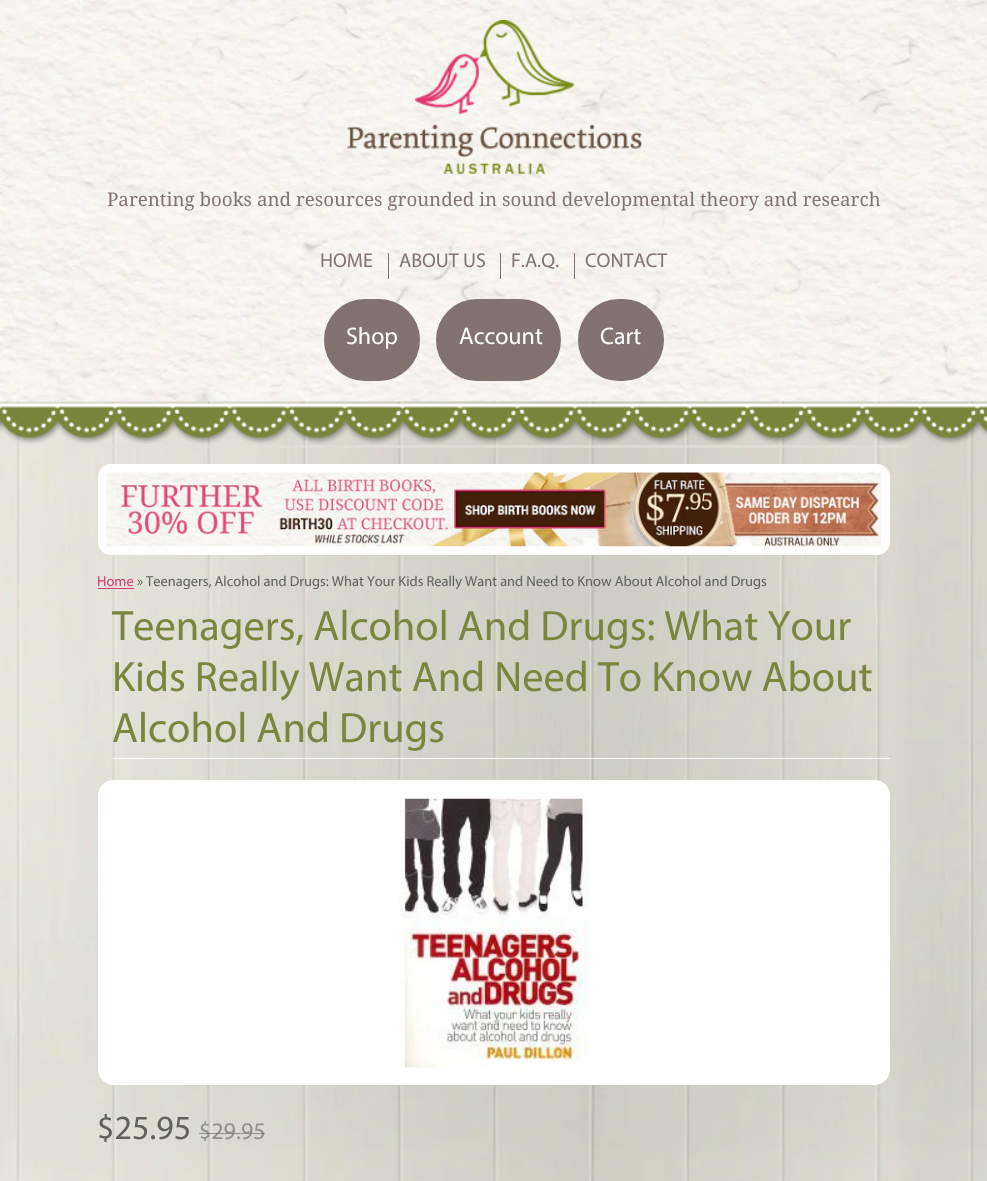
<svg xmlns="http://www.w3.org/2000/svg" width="987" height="1181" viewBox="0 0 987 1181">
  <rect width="100%" height="100%" fill="#fff"/>
  <image x="0" y="401" width="987" height="780" href="img/1.png"/>
  <image x="0" y="0" width="987" height="402" href="img/2.png"/>
  <image x="347" y="20" width="295" height="154" href="img/3.png"/>
  <path d="M388 253h1v26H388z" fill="#827370"/>
  <path d="M500 253h1v26H500z" fill="#827370"/>
  <path d="M574 253h1v26H574z" fill="#827370"/>
  <rect x="326" y="301" width="92" height="78" rx="39" fill="#827370" stroke="#827370" stroke-width="4"/>
  <rect x="438" y="301" width="121" height="78" rx="39" fill="#827370" stroke="#827370" stroke-width="4"/>
  <rect x="580" y="301" width="82" height="78" rx="39" fill="#827370" stroke="#827370" stroke-width="4"/>
  <image x="0" y="402" width="987" height="42" href="img/4.png"/>
  <path d="M592 445h2v3H592z" fill="#e2e0d61a"/>
  <rect x="79" y="445" width="830" height="3" rx="1.5" fill="#e2e0d6b3"/>
  <rect x="98" y="464" width="792" height="91" rx="13" fill="#fff"/>
  <image x="106" y="472" width="776" height="75" href="img/5.png"/>
  <path d="M98 588h36v1H98z" fill="#d93a79"/>
  <path d="M113 758h777v1H113z" fill="#fff"/>
  <rect x="98.5" y="780.5" width="791" height="304" rx="14.5" fill="#fff" stroke="#fff"/>
  <image x="399" y="798" width="190" height="270" href="img/6.png"/>
  <text x="107" y="206" font-family="Droid Serif" font-size="18.75" fill="#837471">Parenting books and resources grounded in sound developmental theory and research</text>
  <g font-family="Myriad" font-size="20" fill="#837471">
    <text x="320" y="267">HOME</text>
    <text x="399" y="267">ABOUT US</text>
    <text x="511" y="267">F.A.Q.</text>
    <text x="585" y="267">CONTACT</text>
  </g>
  <g font-family="Myriad" font-size="24" fill="#fff">
    <text x="346" y="344">Shop</text>
    <text x="459" y="344">Account</text>
    <text x="600" y="344">Cart</text>
  </g>
  <text x="97" y="586" font-family="Myriad" font-size="14.45" fill="#d93a79">Home</text>
  <text x="137" y="586" font-family="Myriad" font-size="14.45" fill="#60615d">» Teenagers, Alcohol and Drugs: What Your Kids Really Want and Need to Know About Alcohol and Drugs</text>
  <g font-family="Myriad" font-size="42.5" fill="#78873d">
    <text x="112" y="640">Teenagers, Alcohol And Drugs: What Your</text>
    <text x="112" y="691">Kids Really Want And Need To Know About</text>
    <text x="112" y="742">Alcohol And Drugs</text>
  </g>
  <text x="97" y="1139" font-family="Myriad" font-size="34" fill="#60615d">$25.95</text>
  <text x="199" y="1139" font-family="Myriad" font-size="24" fill="#91918b">$29.95</text>
  <path d="M199 1133h66v1H199z" fill="#60615d99"/>
</svg>
